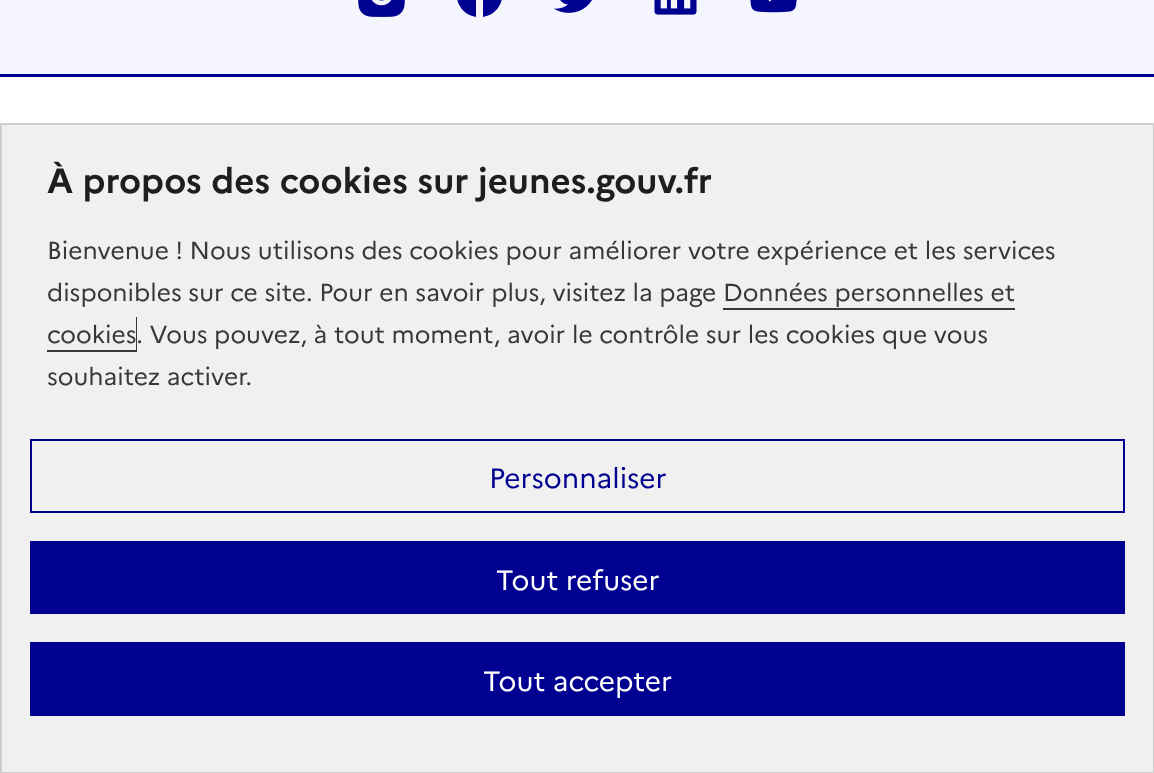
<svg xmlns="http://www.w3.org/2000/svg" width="1154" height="773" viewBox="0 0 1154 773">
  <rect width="100%" height="100%" fill="#fff"/>
  <path d="M0 0h1154v74H0z" fill="#f5f5fe"/>
  <image x="358" y="0" width="47" height="17" href="img/1.png"/>
  <path d="M480-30C451-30 448 12 476 17V0H470V-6H476C476-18 478-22 490-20V-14C483-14 483-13 483-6H490L489 0H483V17C511 12 508-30 480-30Z" fill="#000091"/>
  <image x="553" y="0" width="39" height="13" href="img/2.png"/>
  <image x="654" y="0" width="43" height="15" href="img/3.png"/>
  <image x="750" y="0" width="47" height="13" href="img/4.png"/>
  <path d="M0 74h1154v3H0z" fill="#000091"/>
  <path d="M1 124h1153v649H1z" fill="#f0f0f0" stroke="#cecece" stroke-width="2"/>
  <path d="M723 308h292v2H723z" fill="#383838"/>
  <path d="M47 317V352H137V317H136V350H47Z" fill="#383838"/>
  <path d="M31 440h1093v72H31z" fill="none" stroke="#000091" stroke-width="2"/>
  <path d="M30 541h1095v73H30z" fill="#000091"/>
  <path d="M30 642h1095v74H30z" fill="#000091"/>
  <text x="47" y="193" font-family="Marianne" font-size="35" font-weight="bold" fill="#1e1e1e">À propos des cookies sur jeunes.gouv.fr</text>
  <g font-family="Marianne" font-size="24.5" fill="#383838">
    <text x="47" y="259">Bienvenue ! Nous utilisons des cookies pour améliorer votre expérience et les services</text>
    <text x="47" y="301">disponibles sur ce site. Pour en savoir plus, visitez la page Données personnelles et</text>
    <text x="47" y="343">cookies. Vous pouvez, à tout moment, avoir le contrôle sur les cookies que vous</text>
    <text x="47" y="385">souhaitez activer.</text>
  </g>
  <text x="489" y="488" font-family="Marianne" font-size="28" fill="#000091">Personnaliser</text>
  <g font-family="Marianne" font-size="28" fill="#fff">
    <text x="496" y="590">Tout refuser</text>
    <text x="483" y="691">Tout accepter</text>
  </g>
</svg>
